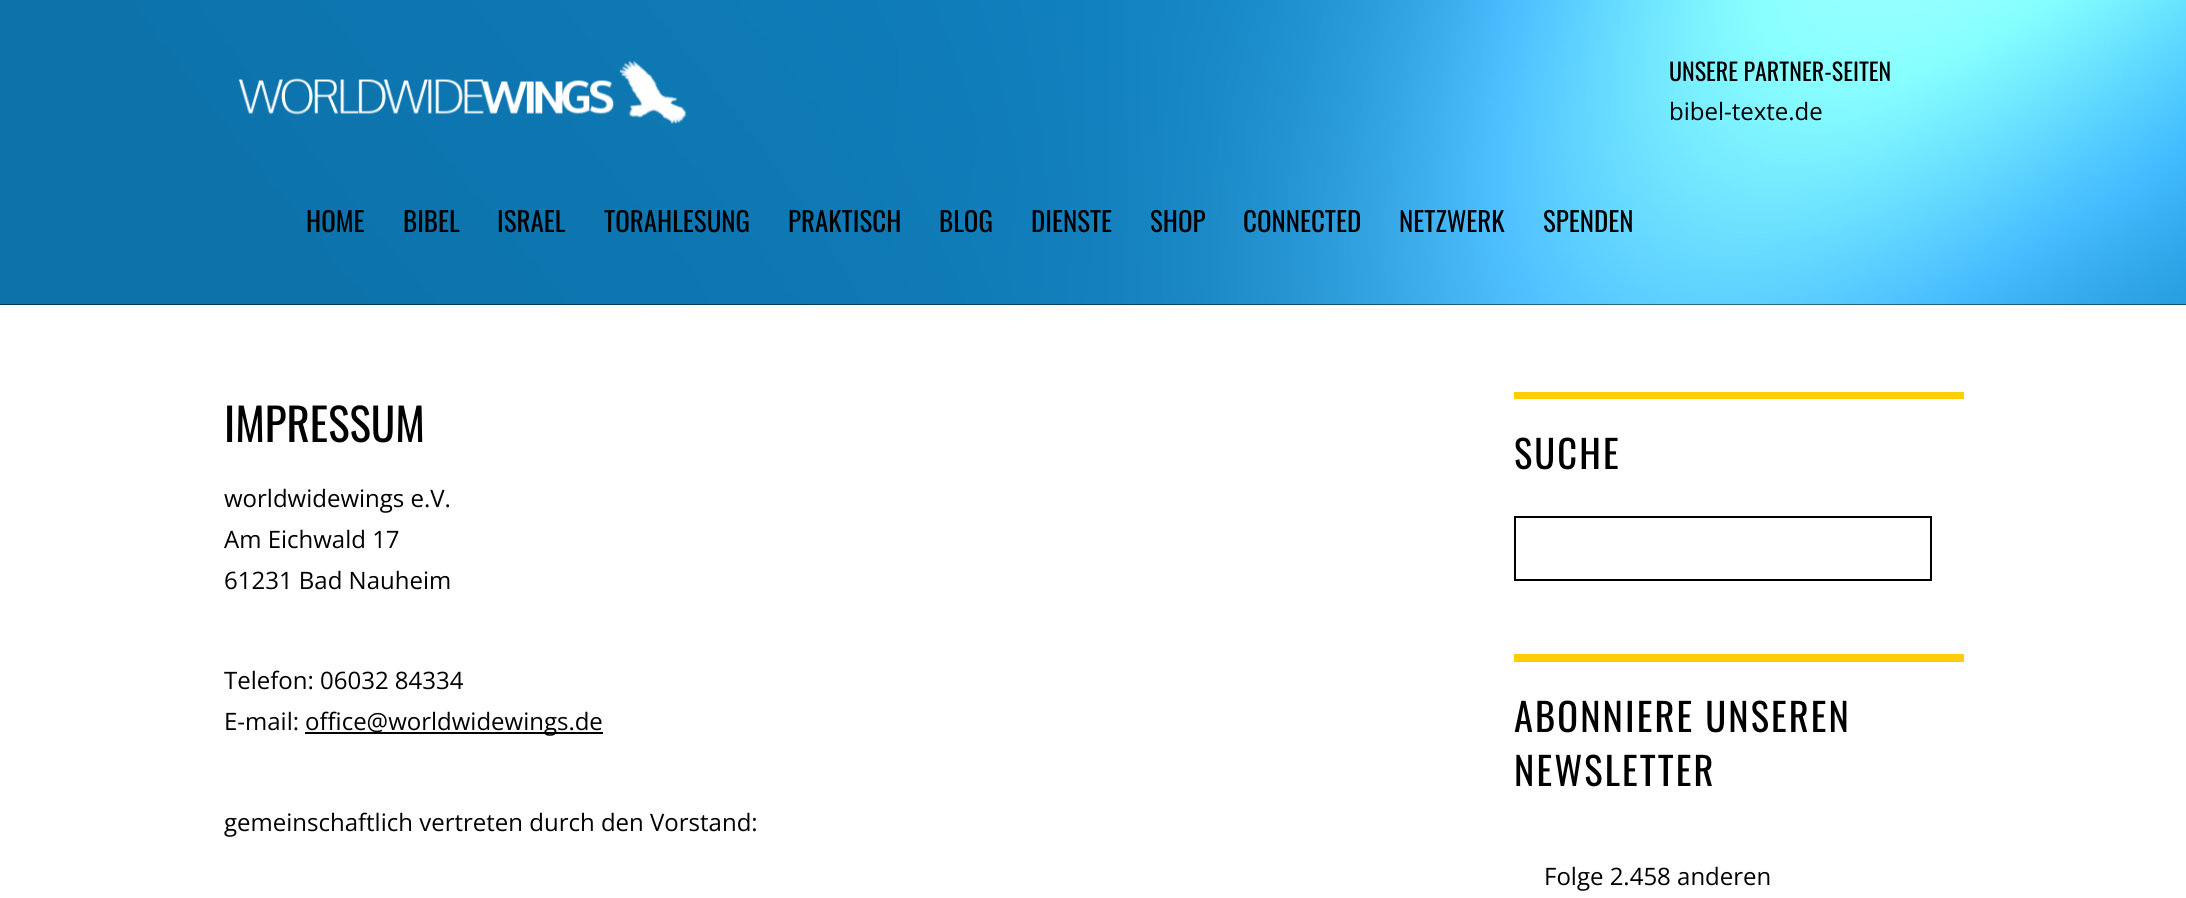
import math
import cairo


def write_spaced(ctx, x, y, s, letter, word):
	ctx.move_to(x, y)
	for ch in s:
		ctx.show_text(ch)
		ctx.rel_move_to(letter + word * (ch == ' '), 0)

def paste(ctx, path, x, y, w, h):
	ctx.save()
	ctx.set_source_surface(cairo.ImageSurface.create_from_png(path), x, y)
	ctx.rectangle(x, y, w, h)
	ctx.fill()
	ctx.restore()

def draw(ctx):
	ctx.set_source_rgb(1, 1, 1)
	ctx.paint()
	ctx.set_source_rgb(0, 0, 0)
	ctx.rectangle(0, 304, 2186, 1)
	ctx.fill()
	paste(ctx, 'media/1.png', 0, 0, 2186, 305)
	paste(ctx, 'media/2.png', 238, 60, 449, 64)
	ctx.select_font_face('Oswald')
	ctx.set_font_size(24)
	ctx.move_to(1669, 81)
	ctx.show_text('UNSERE PARTNER-SEITEN')
	ctx.select_font_face('Open Sans')
	ctx.move_to(1669, 120)
	ctx.show_text('bibel-texte.de')
	ctx.select_font_face('Oswald')
	ctx.set_font_size(27)
	for x, y, s in [
		(306, 232, 'HOME'),
		(403, 232, 'BIBEL'),
		(497, 232, 'ISRAEL'),
		(604, 232, 'TORAHLESUNG'),
		(788, 232, 'PRAKTISCH'),
		(939, 232, 'BLOG'),
		(1031, 232, 'DIENSTE'),
		(1150, 232, 'SHOP'),
		(1243, 232, 'CONNECTED'),
		(1399, 232, 'NETZWERK'),
		(1543, 232, 'SPENDEN'),
	]:
		ctx.move_to(x, y)
		ctx.show_text(s)
	ctx.set_font_size(45)
	ctx.move_to(224, 442)
	ctx.show_text('IMPRESSUM')
	ctx.select_font_face('Open Sans')
	ctx.set_font_size(24)
	for x, y, s in [
		(224, 507, 'worldwidewings e.V.'),
		(224, 548, 'Am Eichwald 17'),
		(224, 589, '61231 Bad Nauheim'),
		(224, 689, 'Telefon: 06032 84334'),
		(224, 730, 'E-mail:'),
	]:
		ctx.move_to(x, y)
		ctx.show_text(s)
	ctx.rectangle(305, 732, 298, 2)
	ctx.fill()
	ctx.move_to(305, 730)
	ctx.show_text('office@worldwidewings.de')
	ctx.move_to(224, 831)
	ctx.show_text('gemeinschaftlich vertreten durch den Vorstand:')
	ctx.set_source_rgb(0.996, 0.804, 0.024)
	ctx.rectangle(1514, 392, 450, 7)
	ctx.fill()
	ctx.select_font_face('Oswald')
	ctx.set_font_size(38.5)
	ctx.set_source_rgb(0, 0, 0)
	write_spaced(ctx, 1514, 469, 'SUCHE', 2.1, 0)
	ctx.rectangle(1515, 517, 416, 63)
	ctx.stroke()
	ctx.set_source_rgb(0.996, 0.804, 0.024)
	ctx.rectangle(1514, 654, 450, 8)
	ctx.fill()
	ctx.set_source_rgb(0, 0, 0)
	write_spaced(ctx, 1514, 732, 'ABONNIERE UNSEREN', 2.1, 0)
	write_spaced(ctx, 1514, 786, 'NEWSLETTER', 2.1, 0)
	ctx.select_font_face('Open Sans')
	ctx.set_font_size(24)
	ctx.move_to(1544, 885)
	ctx.show_text('Folge 2.458 anderen')


surface = cairo.ImageSurface(cairo.FORMAT_RGB24, 2186, 898)
ctx = cairo.Context(surface)
options = cairo.FontOptions()
options.set_hint_metrics(cairo.HINT_METRICS_OFF)
options.set_hint_style(cairo.HINT_STYLE_NONE)
ctx.set_font_options(options)
ctx.set_miter_limit(4)
draw(ctx)
surface.write_to_png('image.png')
